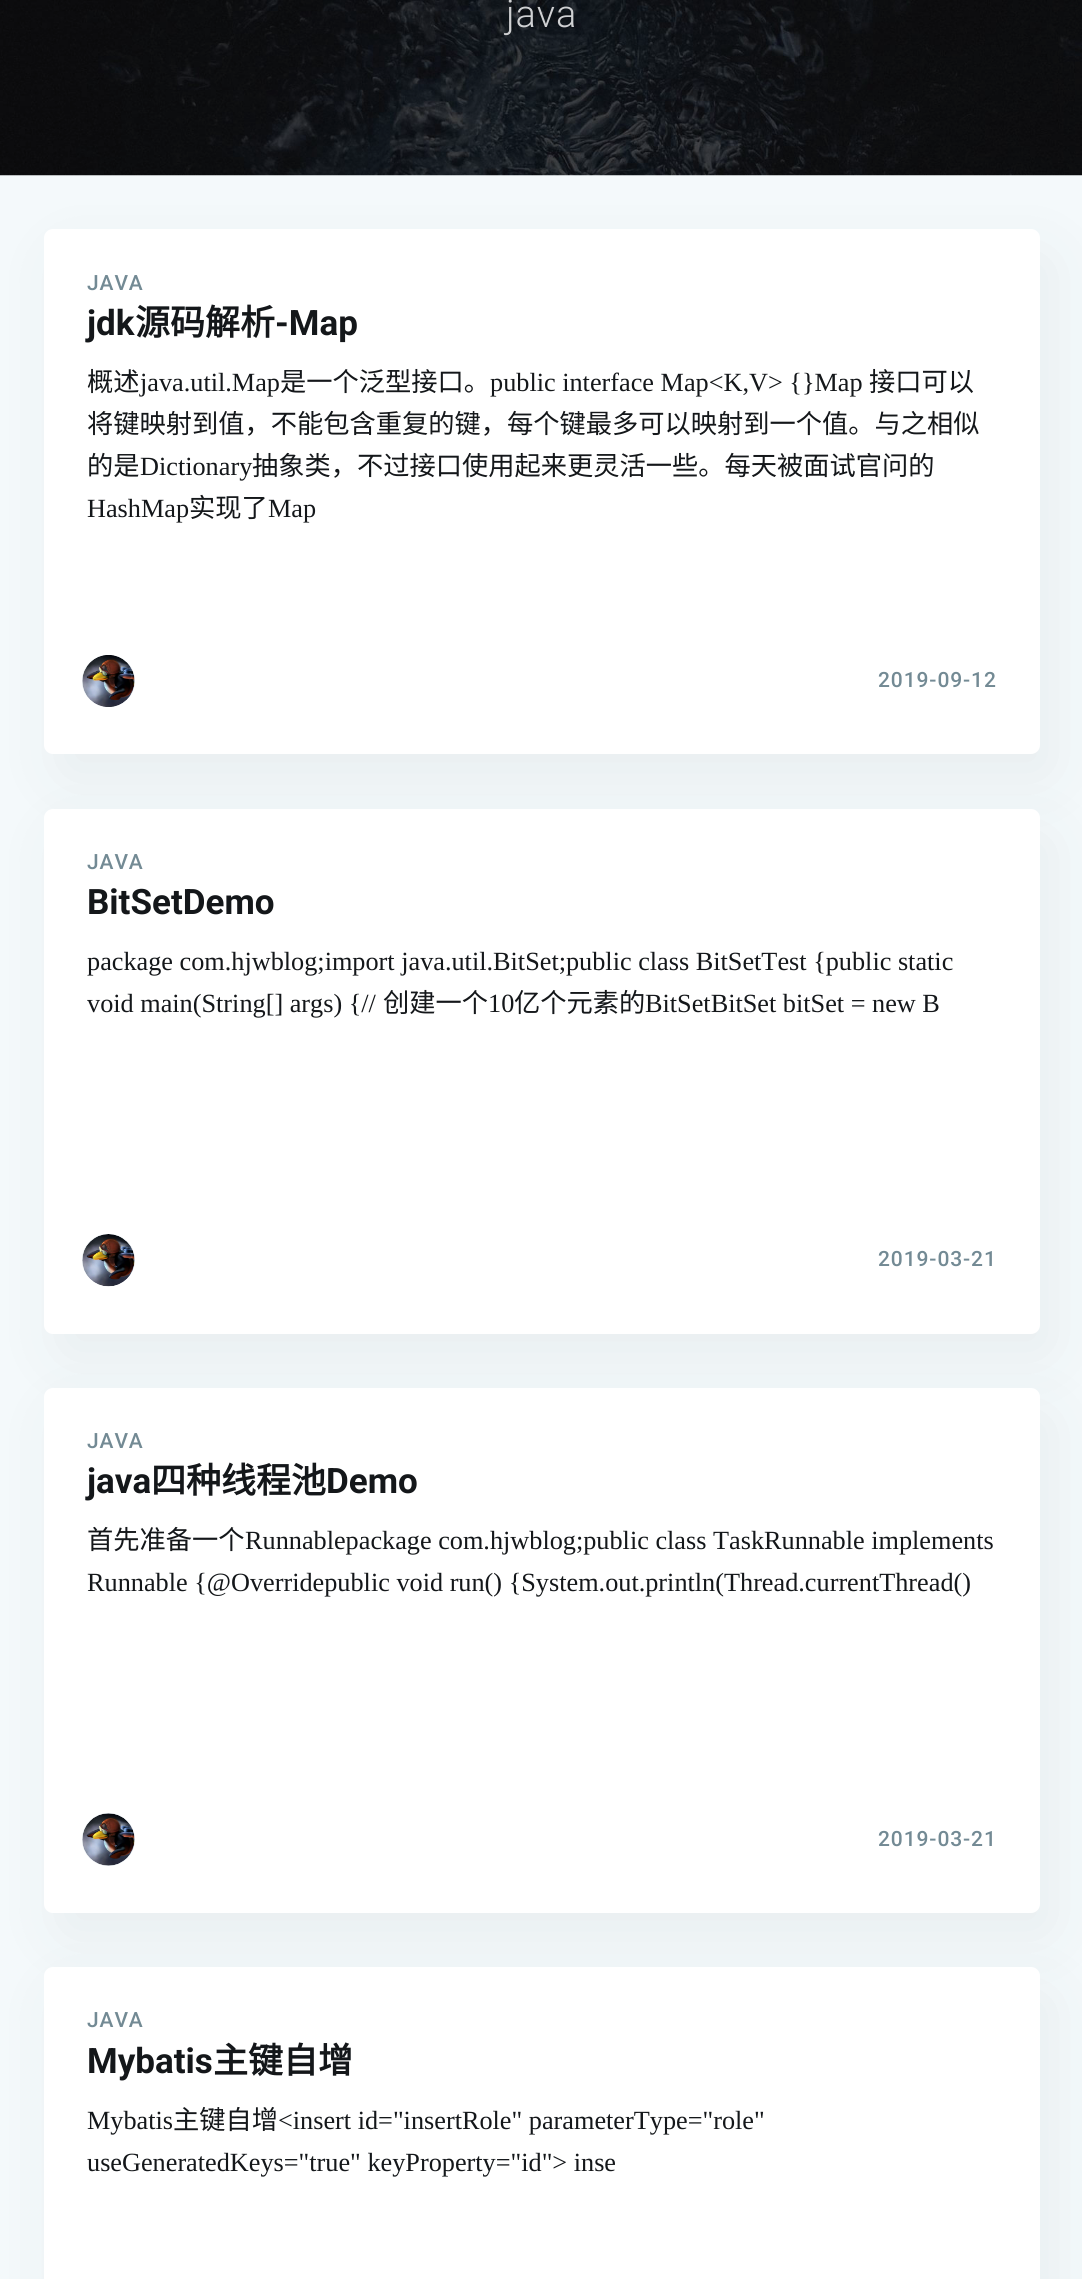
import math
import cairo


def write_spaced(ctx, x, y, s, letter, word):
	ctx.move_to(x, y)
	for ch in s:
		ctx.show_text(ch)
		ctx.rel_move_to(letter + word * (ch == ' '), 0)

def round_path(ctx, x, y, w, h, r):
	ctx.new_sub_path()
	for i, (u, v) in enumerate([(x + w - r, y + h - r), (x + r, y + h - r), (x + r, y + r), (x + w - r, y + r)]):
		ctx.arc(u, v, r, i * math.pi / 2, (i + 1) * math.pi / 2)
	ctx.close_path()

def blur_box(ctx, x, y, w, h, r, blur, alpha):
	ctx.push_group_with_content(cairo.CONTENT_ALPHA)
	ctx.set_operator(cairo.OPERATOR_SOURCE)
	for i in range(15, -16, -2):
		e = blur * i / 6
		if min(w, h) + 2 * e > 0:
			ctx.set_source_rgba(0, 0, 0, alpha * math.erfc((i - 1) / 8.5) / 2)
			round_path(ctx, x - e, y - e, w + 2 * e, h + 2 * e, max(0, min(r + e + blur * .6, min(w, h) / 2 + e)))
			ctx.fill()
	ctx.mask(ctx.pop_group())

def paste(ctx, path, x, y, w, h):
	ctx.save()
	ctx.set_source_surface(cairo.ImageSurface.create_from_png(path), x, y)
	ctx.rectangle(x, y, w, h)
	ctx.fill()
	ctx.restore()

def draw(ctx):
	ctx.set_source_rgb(0.957, 0.973, 0.984)
	ctx.paint()
	paste(ctx, 'media/1.png', 0, 0, 1082, 176)
	ctx.select_font_face('Roboto Light')
	ctx.set_font_size(38)
	ctx.set_source_rgb(0.812, 0.816, 0.824)
	write_spaced(ctx, 506, 27, 'java', 0.9, 0)
	ctx.set_source_rgb(0.153, 0.173, 0.192)
	blur_box(ctx, 58, 254, 996, 525, 9, 33, 0.06)
	ctx.set_source_rgb(1, 1, 1)
	round_path(ctx, 44, 229, 996, 525, 9)
	ctx.fill()
	ctx.select_font_face('Roboto Medium')
	ctx.set_font_size(21)
	ctx.set_source_rgb(0.451, 0.541, 0.58)
	write_spaced(ctx, 87, 290, 'JAVA', 0.9, 0)
	ctx.select_font_face('Roboto', cairo.FONT_SLANT_NORMAL, cairo.FONT_WEIGHT_BOLD)
	ctx.set_font_size(35)
	ctx.set_source_rgb(0.082, 0.09, 0.102)
	ctx.move_to(87, 335)
	ctx.show_text('jdk')
	ctx.select_font_face('Noto Sans CJK SC', cairo.FONT_SLANT_NORMAL, cairo.FONT_WEIGHT_BOLD)
	ctx.move_to(135, 335)
	ctx.show_text('源码解析')
	ctx.select_font_face('Roboto', cairo.FONT_SLANT_NORMAL, cairo.FONT_WEIGHT_BOLD)
	ctx.move_to(275, 335)
	ctx.show_text('-Map')
	ctx.select_font_face('Noto Sans CJK SC')
	ctx.set_font_size(26.25)
	ctx.move_to(87, 391)
	ctx.show_text('概述')
	ctx.select_font_face('Liberation Serif')
	ctx.move_to(140, 391)
	ctx.show_text('java.util.Map')
	ctx.select_font_face('Noto Sans CJK SC')
	ctx.move_to(280, 391)
	ctx.show_text('是一个泛型接口。')
	ctx.select_font_face('Liberation Serif')
	ctx.move_to(490, 391)
	ctx.show_text('public interface Map<K,V> {}Map')
	ctx.select_font_face('Noto Sans CJK SC')
	for x, y, s in [
		(869, 391, '接口可以'),
		(87, 433, '将键映射到值，不能包含重复的键，每个键最多可以映射到一个值。与之相似'),
		(87, 475, '的是'),
	]:
		ctx.move_to(x, y)
		ctx.show_text(s)
	ctx.select_font_face('Liberation Serif')
	ctx.move_to(140, 475)
	ctx.show_text('Dictionary')
	ctx.select_font_face('Noto Sans CJK SC')
	ctx.move_to(252, 475)
	ctx.show_text('抽象类，不过接口使用起来更灵活一些。每天被面试官问的')
	ctx.select_font_face('Liberation Serif')
	ctx.move_to(87, 517)
	ctx.show_text('HashMap')
	ctx.select_font_face('Noto Sans CJK SC')
	ctx.move_to(189, 517)
	ctx.show_text('实现了')
	ctx.select_font_face('Liberation Serif')
	ctx.move_to(268, 517)
	ctx.show_text('Map')
	ctx.set_source_rgb(0.89, 0.914, 0.929)
	round_path(ctx, 82, 655, 53, 52, 26)
	ctx.fill()
	paste(ctx, 'media/2.png', 82, 655, 53, 52)
	ctx.select_font_face('Roboto Medium')
	ctx.set_font_size(21)
	ctx.set_source_rgb(0.451, 0.541, 0.58)
	write_spaced(ctx, 878, 687, '2019-09-12', 0.9, 0)
	ctx.set_source_rgb(0.153, 0.173, 0.192)
	blur_box(ctx, 58, 833, 996, 525, 9, 33, 0.06)
	ctx.set_source_rgb(1, 1, 1)
	round_path(ctx, 44, 809, 996, 525, 9)
	ctx.fill()
	ctx.set_source_rgb(0.451, 0.541, 0.58)
	write_spaced(ctx, 87, 869, 'JAVA', 0.9, 0)
	ctx.select_font_face('Roboto', cairo.FONT_SLANT_NORMAL, cairo.FONT_WEIGHT_BOLD)
	ctx.set_font_size(35)
	ctx.set_source_rgb(0.082, 0.09, 0.102)
	ctx.move_to(87, 914)
	ctx.show_text('BitSetDemo')
	ctx.select_font_face('Liberation Serif')
	ctx.set_font_size(26.25)
	ctx.move_to(87, 970)
	ctx.show_text('package com.hjwblog;import java.util.BitSet;public class BitSetTest {public static')
	ctx.move_to(87, 1012)
	ctx.show_text('void main(String[] args) {//')
	ctx.select_font_face('Noto Sans CJK SC')
	ctx.move_to(383, 1012)
	ctx.show_text('创建一个')
	ctx.select_font_face('Liberation Serif')
	ctx.move_to(488, 1012)
	ctx.show_text('10')
	ctx.select_font_face('Noto Sans CJK SC')
	ctx.move_to(514, 1012)
	ctx.show_text('亿个元素的')
	ctx.select_font_face('Liberation Serif')
	ctx.move_to(645, 1012)
	ctx.show_text('BitSetBitSet bitSet = new B')
	ctx.set_source_rgb(0.89, 0.914, 0.929)
	round_path(ctx, 82, 1234, 53, 52, 26)
	ctx.fill()
	paste(ctx, 'media/3.png', 82, 1234, 53, 53)
	ctx.select_font_face('Roboto Medium')
	ctx.set_font_size(21)
	ctx.set_source_rgb(0.451, 0.541, 0.58)
	write_spaced(ctx, 878, 1266, '2019-03-21', 0.9, 0)
	ctx.set_source_rgb(0.153, 0.173, 0.192)
	blur_box(ctx, 58, 1412, 996, 525, 9, 33, 0.06)
	ctx.set_source_rgb(1, 1, 1)
	round_path(ctx, 44, 1388, 996, 525, 9)
	ctx.fill()
	ctx.set_source_rgb(0.451, 0.541, 0.58)
	write_spaced(ctx, 87, 1448, 'JAVA', 0.9, 0)
	ctx.select_font_face('Roboto', cairo.FONT_SLANT_NORMAL, cairo.FONT_WEIGHT_BOLD)
	ctx.set_font_size(35)
	ctx.set_source_rgb(0.082, 0.09, 0.102)
	ctx.move_to(87, 1493)
	ctx.show_text('java')
	ctx.select_font_face('Noto Sans CJK SC', cairo.FONT_SLANT_NORMAL, cairo.FONT_WEIGHT_BOLD)
	ctx.move_to(151, 1493)
	ctx.show_text('四种线程池')
	ctx.select_font_face('Roboto', cairo.FONT_SLANT_NORMAL, cairo.FONT_WEIGHT_BOLD)
	ctx.move_to(326, 1493)
	ctx.show_text('Demo')
	ctx.select_font_face('Noto Sans CJK SC')
	ctx.set_font_size(26.25)
	ctx.move_to(87, 1549)
	ctx.show_text('首先准备一个')
	ctx.select_font_face('Liberation Serif')
	ctx.move_to(245, 1549)
	ctx.show_text('Runnablepackage com.hjwblog;public class TaskRunnable implements')
	ctx.move_to(87, 1591)
	ctx.show_text('Runnable {@Overridepublic void run() {System.out.println(Thread.currentThread()')
	ctx.set_source_rgb(0.89, 0.914, 0.929)
	ctx.new_path()
	ctx.arc(108.5, 1839.5, 26.5, 0, 2 * math.pi)
	ctx.fill()
	paste(ctx, 'media/4.png', 82, 1813, 53, 53)
	ctx.select_font_face('Roboto Medium')
	ctx.set_font_size(21)
	ctx.set_source_rgb(0.451, 0.541, 0.58)
	write_spaced(ctx, 878, 1846, '2019-03-21', 0.9, 0)
	ctx.set_source_rgb(0.153, 0.173, 0.192)
	blur_box(ctx, 58, 1992, 996, 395, 9, 33, 0.06)
	ctx.set_source_rgb(1, 1, 1)
	round_path(ctx, 44, 1967, 996, 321, 9)
	ctx.fill()
	ctx.set_source_rgb(0.451, 0.541, 0.58)
	write_spaced(ctx, 87, 2027, 'JAVA', 0.9, 0)
	ctx.select_font_face('Roboto', cairo.FONT_SLANT_NORMAL, cairo.FONT_WEIGHT_BOLD)
	ctx.set_font_size(35)
	ctx.set_source_rgb(0.082, 0.09, 0.102)
	ctx.move_to(87, 2073)
	ctx.show_text('Mybatis')
	ctx.select_font_face('Noto Sans CJK SC', cairo.FONT_SLANT_NORMAL, cairo.FONT_WEIGHT_BOLD)
	ctx.move_to(213, 2073)
	ctx.show_text('主键自增')
	ctx.select_font_face('Liberation Serif')
	ctx.set_font_size(26.25)
	ctx.move_to(87, 2129)
	ctx.show_text('Mybatis')
	ctx.select_font_face('Noto Sans CJK SC')
	ctx.move_to(173, 2129)
	ctx.show_text('主键自增')
	ctx.select_font_face('Liberation Serif')
	ctx.move_to(278, 2129)
	ctx.show_text('<insert id="insertRole" parameterType="role"')
	ctx.move_to(87, 2171)
	ctx.show_text('useGeneratedKeys="true" keyProperty="id"> inse')


surface = cairo.ImageSurface(cairo.FORMAT_RGB24, 1082, 2279)
ctx = cairo.Context(surface)
options = cairo.FontOptions()
options.set_hint_metrics(cairo.HINT_METRICS_OFF)
options.set_hint_style(cairo.HINT_STYLE_NONE)
ctx.set_font_options(options)
ctx.set_miter_limit(4)
draw(ctx)
surface.write_to_png('image.png')
